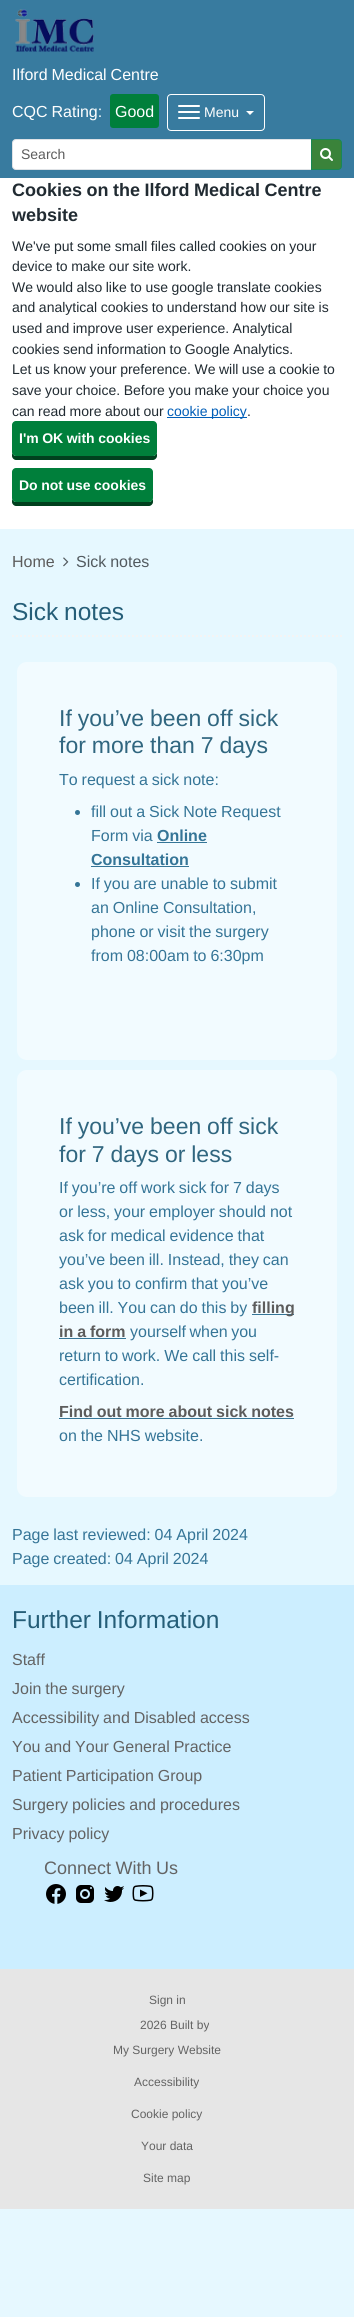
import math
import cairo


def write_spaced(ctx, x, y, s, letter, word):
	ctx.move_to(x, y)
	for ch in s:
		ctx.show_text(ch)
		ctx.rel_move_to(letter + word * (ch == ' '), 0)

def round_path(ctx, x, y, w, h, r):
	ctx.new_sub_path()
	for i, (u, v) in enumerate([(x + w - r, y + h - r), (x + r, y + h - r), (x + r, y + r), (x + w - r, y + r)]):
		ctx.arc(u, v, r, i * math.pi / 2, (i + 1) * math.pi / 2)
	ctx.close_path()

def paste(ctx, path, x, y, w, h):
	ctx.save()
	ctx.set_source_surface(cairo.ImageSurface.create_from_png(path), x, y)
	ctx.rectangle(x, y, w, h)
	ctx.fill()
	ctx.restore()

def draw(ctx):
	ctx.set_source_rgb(0.902, 0.969, 1)
	ctx.paint()
	ctx.set_source_rgb(0.22, 0.482, 0.624)
	ctx.rectangle(0, 0, 354, 178)
	ctx.fill()
	paste(ctx, 'media/1.png', 15, 9, 79, 43)
	ctx.select_font_face('Liberation Sans')
	ctx.set_font_size(16)
	ctx.set_source_rgb(1, 1, 1)
	write_spaced(ctx, 12, 80, 'Ilford Medical Centre', 0, -0.5)
	write_spaced(ctx, 12, 117, 'CQC Rating:', 0, -0.5)
	ctx.set_source_rgb(0, 0.498, 0.231)
	round_path(ctx, 110, 94, 49, 34, 3)
	ctx.fill()
	ctx.set_source_rgb(1, 1, 1)
	ctx.move_to(115, 117)
	ctx.show_text('Good')
	round_path(ctx, 167.5, 94.5, 97, 36, 3.5)
	ctx.set_line_width(1)
	ctx.stroke()
	round_path(ctx, 178, 105, 22, 2, 1)
	ctx.fill()
	round_path(ctx, 178, 111, 22, 2, 1)
	ctx.fill()
	round_path(ctx, 178, 117, 22, 2, 1)
	ctx.fill()
	ctx.set_font_size(14)
	ctx.move_to(204, 117)
	ctx.show_text('Menu')
	ctx.new_path()
	ctx.move_to(246, 111)
	ctx.line_to(254, 111)
	ctx.line_to(250, 115)
	ctx.close_path()
	ctx.fill()
	ctx.new_path()
	ctx.move_to(16, 139.5)
	ctx.line_to(311.5, 139.5)
	ctx.line_to(311.5, 169.5)
	ctx.line_to(16, 169.5)
	ctx.curve_to(14, 169.5, 12.5, 168, 12.5, 166)
	ctx.line_to(12.5, 143)
	ctx.curve_to(12.5, 141, 14, 139.5, 16, 139.5)
	ctx.close_path()
	ctx.fill_preserve()
	ctx.set_source_rgb(0.871, 0.886, 0.902)
	ctx.stroke()
	ctx.set_source_rgb(0.361, 0.361, 0.361)
	ctx.move_to(21, 159)
	ctx.show_text('Search')
	ctx.set_source_rgb(0.227, 0.514, 0.227)
	ctx.new_path()
	ctx.move_to(311.5, 139.5)
	ctx.line_to(338, 139.5)
	ctx.curve_to(340, 139.5, 341.5, 141, 341.5, 143)
	ctx.line_to(341.5, 166)
	ctx.curve_to(341.5, 168, 340, 169.5, 338, 169.5)
	ctx.line_to(311.5, 169.5)
	ctx.close_path()
	ctx.fill_preserve()
	ctx.set_source_rgb(0.098, 0.529, 0.329)
	ctx.stroke()
	paste(ctx, 'media/2.png', 320, 148, 13, 13)
	ctx.set_font_size(16)
	ctx.set_source_rgb(0.361, 0.361, 0.361)
	ctx.move_to(12, 567)
	ctx.show_text('Home')
	paste(ctx, 'media/3.png', 63, 557, 6, 10)
	ctx.set_source_rgb(0.322, 0.353, 0.373)
	write_spaced(ctx, 76, 567, 'Sick notes', 0, -0.5)
	ctx.new_path()
	ctx.move_to(12, 636)
	ctx.line_to(342, 636)
	ctx.set_source_rgb(0.957, 0.957, 0.957)
	ctx.set_line_width(2)
	ctx.set_dash([2, 2])
	ctx.stroke()
	ctx.set_font_size(24.5)
	ctx.set_source_rgb(0.145, 0.369, 0.471)
	write_spaced(ctx, 12, 620, 'Sick notes', 0, -1)
	ctx.set_source_rgb(0.949, 0.984, 1)
	round_path(ctx, 17, 662, 320, 398, 10)
	ctx.fill()
	ctx.set_font_size(23)
	ctx.set_source_rgb(0.188, 0.4, 0.498)
	write_spaced(ctx, 59, 726, 'If you’ve been off sick', 0, -0.5)
	write_spaced(ctx, 59, 753, 'for more than 7 days', 0, -0.5)
	ctx.set_font_size(16)
	ctx.set_source_rgb(0.208, 0.459, 0.592)
	write_spaced(ctx, 59, 785, 'To request a sick note:', 0, -0.5)
	ctx.new_path()
	ctx.arc(77.5, 812.5, 2.5, 0, 2 * math.pi)
	ctx.fill()
	write_spaced(ctx, 91, 817, 'fill out a Sick Note Request', 0, -0.5)
	write_spaced(ctx, 91, 841, 'Form via', 0, -0.5)
	ctx.select_font_face('Liberation Sans', cairo.FONT_SLANT_NORMAL, cairo.FONT_WEIGHT_BOLD)
	ctx.move_to(157, 841)
	ctx.show_text('Online')
	ctx.rectangle(157, 842, 50, 1)
	ctx.fill()
	ctx.move_to(91, 865)
	ctx.show_text('Consultation')
	ctx.rectangle(91, 866, 98, 1)
	ctx.fill()
	ctx.arc(77.5, 884.5, 2.5, 0, 2 * math.pi)
	ctx.fill()
	ctx.select_font_face('Liberation Sans')
	for x, y, s in [
		(91, 889, 'If you are unable to submit'),
		(91, 913, 'an Online Consultation,'),
		(91, 937, 'phone or visit the surgery'),
		(91, 961, 'from 08:00am to 6:30pm'),
	]:
		write_spaced(ctx, x, y, s, 0, -0.5)
	ctx.set_source_rgb(0.949, 0.984, 1)
	round_path(ctx, 17, 1070, 320, 427, 10)
	ctx.fill()
	ctx.set_font_size(23)
	ctx.set_source_rgb(0.188, 0.4, 0.498)
	write_spaced(ctx, 59, 1134, 'If you’ve been off sick', 0, -0.5)
	write_spaced(ctx, 59, 1162, 'for 7 days or less', 0, -0.5)
	ctx.set_font_size(16)
	ctx.set_source_rgb(0.208, 0.459, 0.592)
	for x, y, s in [
		(59, 1193, 'If you’re off work sick for 7 days'),
		(59, 1217, 'or less, your employer should not'),
		(59, 1241, 'ask for medical evidence that'),
		(59, 1265, 'you’ve been ill. Instead, they can'),
		(59, 1289, 'ask you to confirm that you’ve'),
		(59, 1313, 'been ill. You can do this by'),
	]:
		write_spaced(ctx, x, y, s, 0, -0.5)
	ctx.rectangle(252, 1314, 42, 1)
	ctx.fill()
	ctx.select_font_face('Liberation Sans', cairo.FONT_SLANT_NORMAL, cairo.FONT_WEIGHT_BOLD)
	ctx.set_source_rgb(0.361, 0.361, 0.361)
	ctx.move_to(252, 1313)
	ctx.show_text('filling')
	write_spaced(ctx, 59, 1337, 'in a form', 0, -0.5)
	ctx.set_source_rgb(0.208, 0.459, 0.592)
	ctx.rectangle(59, 1338, 67, 1)
	ctx.fill()
	ctx.select_font_face('Liberation Sans')
	write_spaced(ctx, 130, 1337, 'yourself when you', 0, -1)
	write_spaced(ctx, 59, 1361, 'return to work. We call this self-', 0, -0.5)
	ctx.move_to(59, 1385)
	ctx.show_text('certification.')
	ctx.select_font_face('Liberation Sans', cairo.FONT_SLANT_NORMAL, cairo.FONT_WEIGHT_BOLD)
	ctx.set_source_rgb(0.361, 0.361, 0.361)
	write_spaced(ctx, 59, 1417, 'Find out more about sick notes', 0, -0.5)
	ctx.set_source_rgb(0.208, 0.459, 0.592)
	ctx.rectangle(59, 1418, 235, 1)
	ctx.fill()
	ctx.select_font_face('Liberation Sans')
	for x, y, s in [
		(59, 1441, 'on the NHS website.'),
		(12, 1540, 'Page last reviewed: 04 April 2024'),
		(12, 1564, 'Page created: 04 April 2024'),
	]:
		write_spaced(ctx, x, y, s, 0, -0.5)
	ctx.set_source_rgb(0.8, 0.933, 1)
	ctx.rectangle(0, 1585, 354, 384)
	ctx.fill()
	ctx.set_font_size(24.5)
	ctx.set_source_rgb(0.145, 0.369, 0.471)
	write_spaced(ctx, 12, 1628, 'Further Information', 0, -1)
	ctx.set_font_size(16)
	ctx.set_source_rgb(0.388, 0.388, 0.388)
	ctx.move_to(12, 1665)
	ctx.show_text('Staff')
	for x, y, s in [
		(12, 1694, 'Join the surgery'),
		(12, 1723, 'Accessibility and Disabled access'),
		(12, 1752, 'You and Your General Practice'),
		(12, 1781, 'Patient Participation Group'),
		(12, 1810, 'Surgery policies and procedures'),
		(12, 1839, 'Privacy policy'),
	]:
		write_spaced(ctx, x, y, s, 0, -0.5)
	ctx.set_font_size(18)
	write_spaced(ctx, 44, 1874, 'Connect With Us', 0, -0.5)
	paste(ctx, 'media/4.png', 46, 1884, 20, 20)
	paste(ctx, 'media/5.png', 76, 1885, 18, 18)
	paste(ctx, 'media/6.png', 104, 1886, 20, 16)
	paste(ctx, 'media/7.png', 132, 1885, 22, 17)
	ctx.set_source_rgb(1, 1, 1)
	ctx.rectangle(0, 178, 354, 351)
	ctx.fill()
	ctx.select_font_face('Liberation Sans', cairo.FONT_SLANT_NORMAL, cairo.FONT_WEIGHT_BOLD)
	ctx.set_source_rgb(0.129, 0.169, 0.196)
	write_spaced(ctx, 12, 196, 'Cookies on the Ilford Medical Centre', 0, -0.5)
	ctx.move_to(12, 221)
	ctx.show_text('website')
	ctx.select_font_face('Liberation Sans')
	ctx.set_font_size(14)
	for x, y, s in [
		(12, 251, 'We\'ve put some small files called cookies on your'),
		(12, 271, 'device to make our site work.'),
		(12, 292, 'We would also like to use google translate cookies'),
		(12, 312, 'and analytical cookies to understand how our site is'),
		(12, 333, 'used and improve user experience. Analytical'),
		(12, 354, 'cookies send information to Google Analytics.'),
		(12, 374, 'Let us know your preference. We will use a cookie to'),
		(12, 395, 'save your choice. Before you make your choice you'),
		(12, 416, 'can read more about our'),
	]:
		write_spaced(ctx, x, y, s, 0, -0.4)
	ctx.set_source_rgb(0, 0.369, 0.722)
	ctx.rectangle(167, 417, 80, 1)
	ctx.fill()
	write_spaced(ctx, 167, 416, 'cookie policy', 0, -0.4)
	ctx.set_source_rgb(0.129, 0.169, 0.196)
	ctx.move_to(247, 416)
	ctx.show_text('.')
	ctx.set_source_rgb(0, 0.251, 0.118)
	ctx.new_path()
	ctx.move_to(12, 452)
	ctx.line_to(12, 456)
	ctx.curve_to(12, 458, 14, 460, 16, 460)
	ctx.line_to(153, 460)
	ctx.curve_to(155, 460, 157, 458, 157, 456)
	ctx.line_to(157, 452)
	ctx.curve_to(157, 454, 155, 456, 153, 456)
	ctx.line_to(16, 456)
	ctx.curve_to(14, 456, 12, 454, 12, 452)
	ctx.close_path()
	ctx.fill()
	ctx.set_source_rgb(0, 0.498, 0.231)
	round_path(ctx, 12, 421, 145, 35, 4)
	ctx.fill()
	ctx.select_font_face('Liberation Sans', cairo.FONT_SLANT_NORMAL, cairo.FONT_WEIGHT_BOLD)
	ctx.set_source_rgb(1, 1, 1)
	write_spaced(ctx, 19, 443, 'I\'m OK with cookies', 0, -0.4)
	ctx.set_source_rgb(0, 0.251, 0.118)
	ctx.new_path()
	ctx.move_to(12, 498)
	ctx.line_to(12, 502)
	ctx.curve_to(12, 504, 14, 506, 16, 506)
	ctx.line_to(149, 506)
	ctx.curve_to(151, 506, 153, 504, 153, 502)
	ctx.line_to(153, 498)
	ctx.curve_to(153, 500, 151, 502, 149, 502)
	ctx.line_to(16, 502)
	ctx.curve_to(14, 502, 12, 500, 12, 498)
	ctx.close_path()
	ctx.fill()
	ctx.set_source_rgb(0, 0.498, 0.231)
	round_path(ctx, 12, 468, 141, 34, 4)
	ctx.fill()
	ctx.set_source_rgb(1, 1, 1)
	write_spaced(ctx, 19, 490, 'Do not use cookies', 0, -0.4)
	ctx.set_source_rgb(0.902, 0.902, 0.902)
	ctx.rectangle(0, 1969, 354, 240)
	ctx.fill()
	ctx.select_font_face('Liberation Sans')
	ctx.set_font_size(12)
	ctx.set_source_rgb(0.388, 0.388, 0.388)
	for x, y, s in [
		(149, 2004, 'Sign in'),
		(140, 2029, '2026 Built by'),
		(113, 2054, 'My Surgery Website'),
		(134, 2086, 'Accessibility'),
		(131, 2118, 'Cookie policy'),
		(141, 2150, 'Your data'),
		(143, 2182, 'Site map'),
	]:
		ctx.move_to(x, y)
		ctx.show_text(s)


surface = cairo.ImageSurface(cairo.FORMAT_RGB24, 354, 2317)
ctx = cairo.Context(surface)
options = cairo.FontOptions()
options.set_hint_metrics(cairo.HINT_METRICS_OFF)
options.set_hint_style(cairo.HINT_STYLE_NONE)
ctx.set_font_options(options)
ctx.set_miter_limit(4)
draw(ctx)
surface.write_to_png('image.png')
